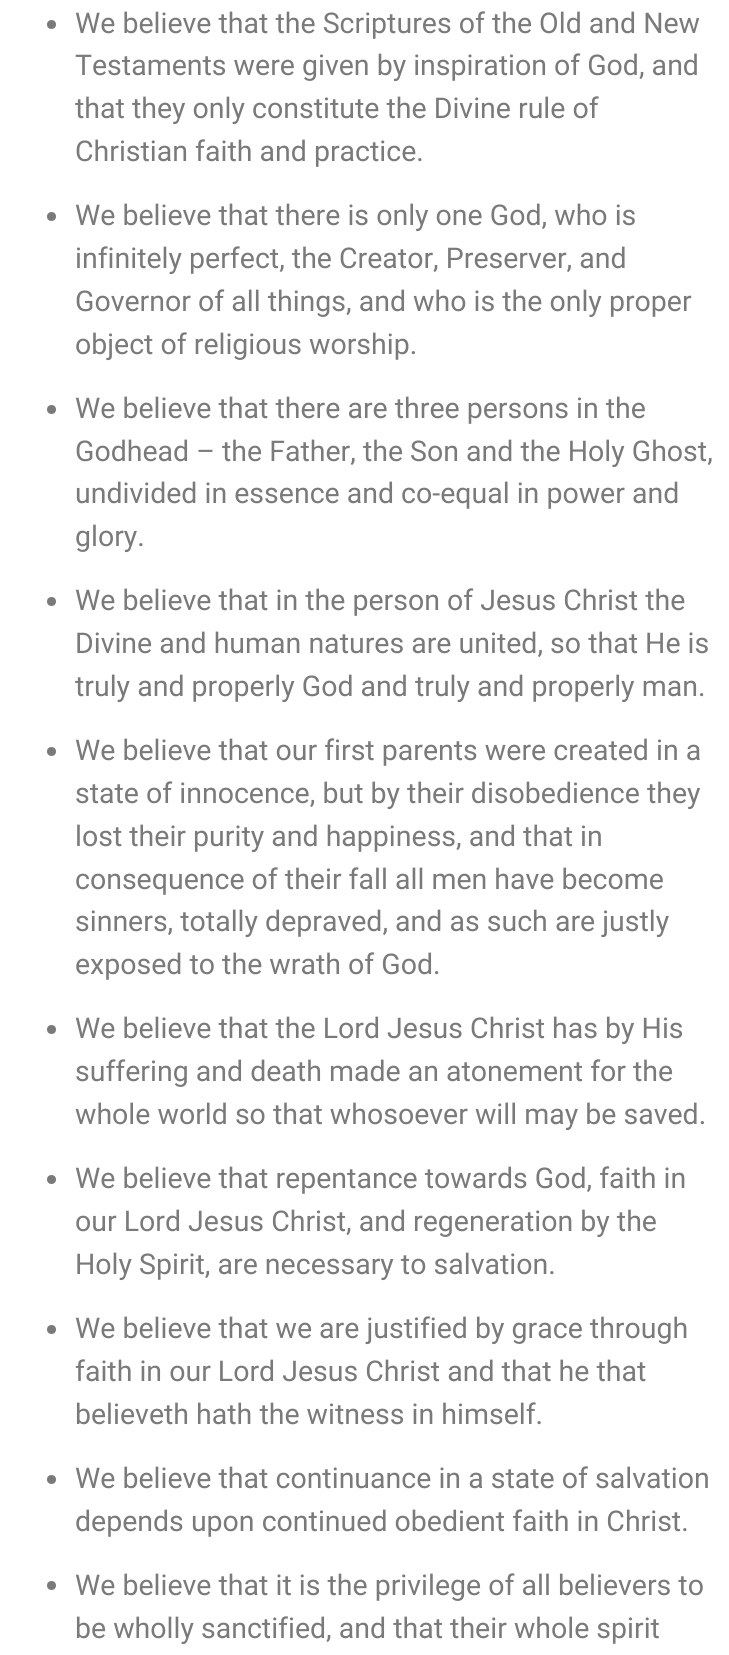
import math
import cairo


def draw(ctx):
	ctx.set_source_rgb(1, 1, 1)
	ctx.paint()
	ctx.set_source_rgb(0.478, 0.478, 0.478)
	ctx.arc(51.5, 24.5, 4.5, 0, 2 * math.pi)
	ctx.fill()
	ctx.select_font_face('Roboto')
	ctx.set_font_size(28.5)
	for x, y, s in [
		(75, 33, 'We believe that the Scriptures of the Old and New'),
		(75, 75, 'Testaments were given by inspiration of God, and'),
		(75, 118, 'that they only constitute the Divine rule of'),
		(75, 161, 'Christian faith and practice.'),
	]:
		ctx.move_to(x, y)
		ctx.show_text(s)
	ctx.new_path()
	ctx.arc(51.5, 216.5, 4.5, 0, 2 * math.pi)
	ctx.fill()
	for x, y, s in [
		(75, 225, 'We believe that there is only one God, who is'),
		(75, 268, 'infinitely perfect, the Creator, Preserver, and'),
		(75, 311, 'Governor of all things, and who is the only proper'),
		(75, 354, 'object of religious worship.'),
	]:
		ctx.move_to(x, y)
		ctx.show_text(s)
	ctx.new_path()
	ctx.arc(51.5, 409.5, 4.5, 0, 2 * math.pi)
	ctx.fill()
	for x, y, s in [
		(75, 418, 'We believe that there are three persons in the'),
		(75, 461, 'Godhead – the Father, the Son and the Holy Ghost,'),
		(75, 503, 'undivided in essence and co-equal in power and'),
		(75, 546, 'glory.'),
	]:
		ctx.move_to(x, y)
		ctx.show_text(s)
	ctx.new_path()
	ctx.arc(51.5, 601.5, 4.5, 0, 2 * math.pi)
	ctx.fill()
	for x, y, s in [
		(75, 610, 'We believe that in the person of Jesus Christ the'),
		(75, 653, 'Divine and human natures are united, so that He is'),
		(75, 696, 'truly and properly God and truly and properly man.'),
	]:
		ctx.move_to(x, y)
		ctx.show_text(s)
	ctx.new_path()
	ctx.arc(51.5, 751.5, 4.5, 0, 2 * math.pi)
	ctx.fill()
	for x, y, s in [
		(75, 760, 'We believe that our first parents were created in a'),
		(75, 803, 'state of innocence, but by their disobedience they'),
		(75, 846, 'lost their purity and happiness, and that in'),
		(75, 889, 'consequence of their fall all men have become'),
		(75, 931, 'sinners, totally depraved, and as such are justly'),
		(75, 974, 'exposed to the wrath of God.'),
	]:
		ctx.move_to(x, y)
		ctx.show_text(s)
	ctx.new_path()
	ctx.arc(51.5, 1029.5, 4.5, 0, 2 * math.pi)
	ctx.fill()
	for x, y, s in [
		(75, 1038, 'We believe that the Lord Jesus Christ has by His'),
		(75, 1081, 'suffering and death made an atonement for the'),
		(75, 1124, 'whole world so that whosoever will may be saved.'),
	]:
		ctx.move_to(x, y)
		ctx.show_text(s)
	ctx.new_path()
	ctx.arc(51.5, 1179.5, 4.5, 0, 2 * math.pi)
	ctx.fill()
	for x, y, s in [
		(75, 1188, 'We believe that repentance towards God, faith in'),
		(75, 1231, 'our Lord Jesus Christ, and regeneration by the'),
		(75, 1274, 'Holy Spirit, are necessary to salvation.'),
	]:
		ctx.move_to(x, y)
		ctx.show_text(s)
	ctx.new_path()
	ctx.arc(51.5, 1329.5, 4.5, 0, 2 * math.pi)
	ctx.fill()
	for x, y, s in [
		(75, 1338, 'We believe that we are justified by grace through'),
		(75, 1381, 'faith in our Lord Jesus Christ and that he that'),
		(75, 1424, 'believeth hath the witness in himself.'),
	]:
		ctx.move_to(x, y)
		ctx.show_text(s)
	ctx.new_path()
	ctx.arc(51.5, 1479.5, 4.5, 0, 2 * math.pi)
	ctx.fill()
	ctx.move_to(75, 1488)
	ctx.show_text('We believe that continuance in a state of salvation')
	ctx.move_to(75, 1531)
	ctx.show_text('depends upon continued obedient faith in Christ.')
	ctx.new_path()
	ctx.arc(51.5, 1585.5, 4.5, 0, 2 * math.pi)
	ctx.fill()
	ctx.move_to(75, 1595)
	ctx.show_text('We believe that it is the privilege of all believers to')
	ctx.move_to(75, 1638)
	ctx.show_text('be wholly sanctified, and that their whole spirit')


surface = cairo.ImageSurface(cairo.FORMAT_RGB24, 729, 1655)
ctx = cairo.Context(surface)
options = cairo.FontOptions()
options.set_hint_metrics(cairo.HINT_METRICS_OFF)
options.set_hint_style(cairo.HINT_STYLE_NONE)
ctx.set_font_options(options)
ctx.set_miter_limit(4)
draw(ctx)
surface.write_to_png('image.png')
